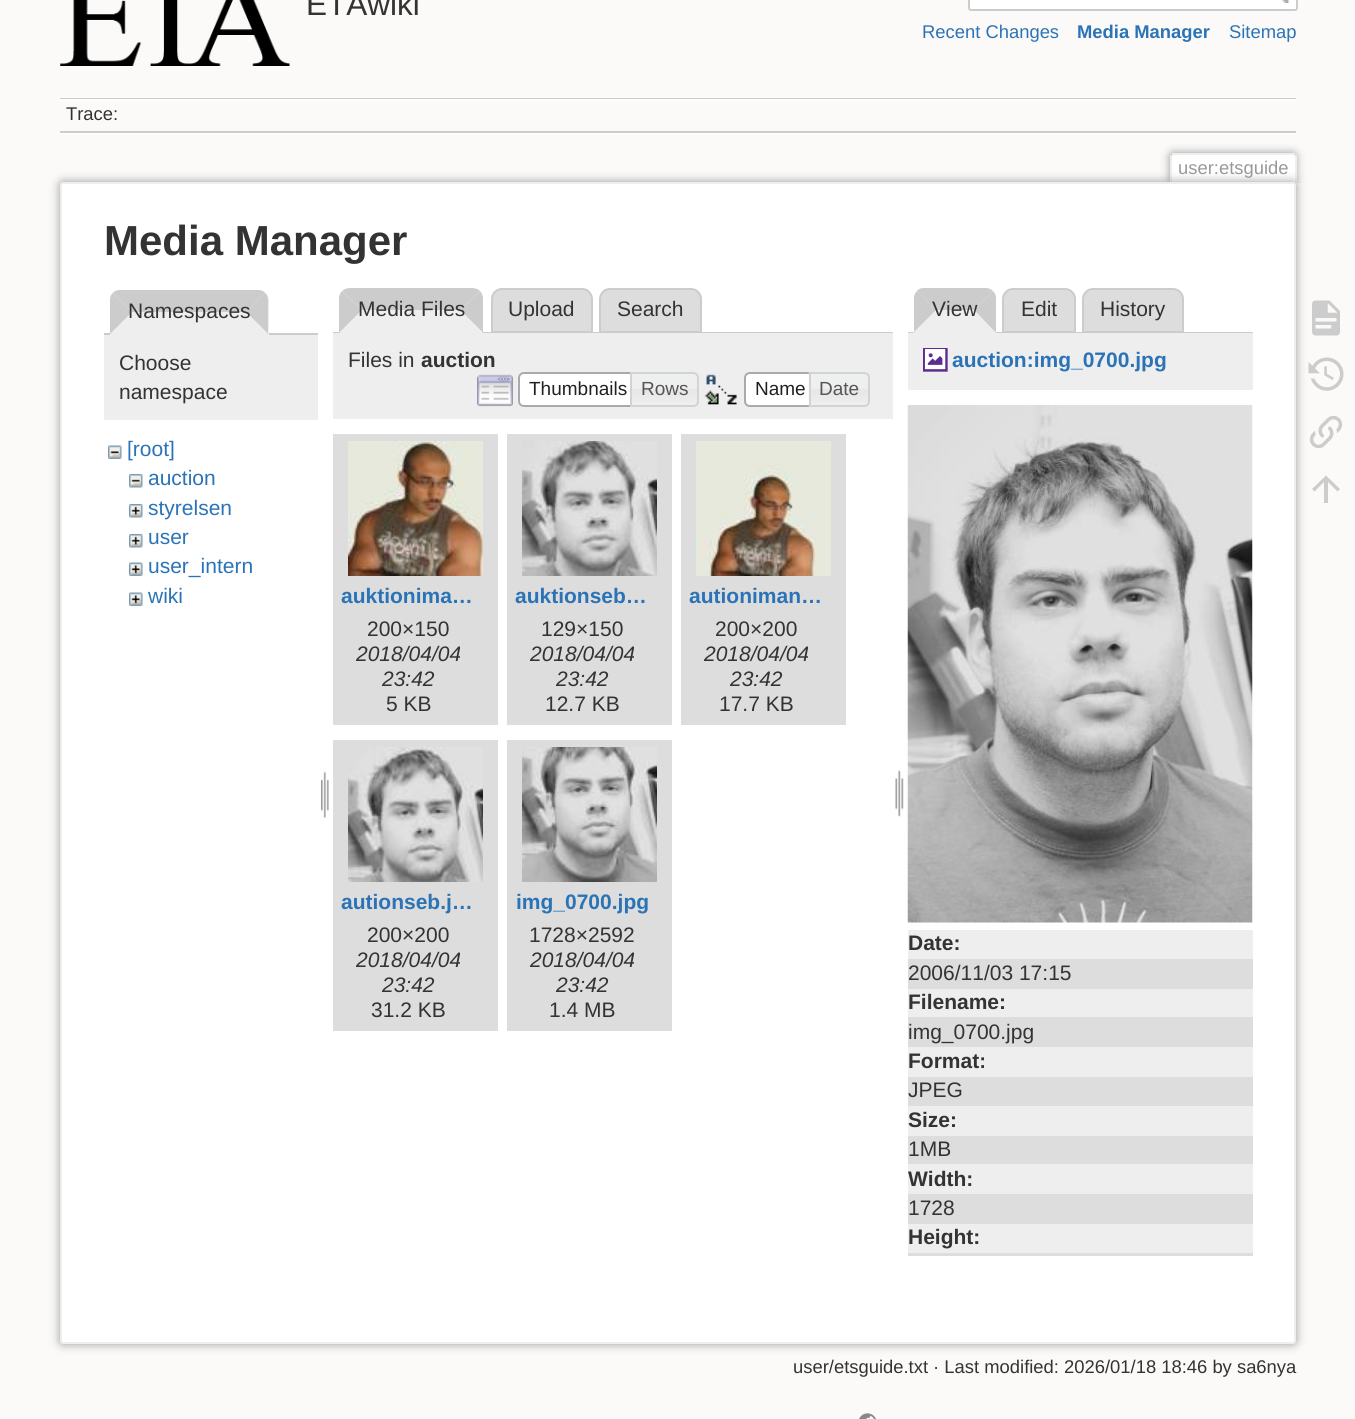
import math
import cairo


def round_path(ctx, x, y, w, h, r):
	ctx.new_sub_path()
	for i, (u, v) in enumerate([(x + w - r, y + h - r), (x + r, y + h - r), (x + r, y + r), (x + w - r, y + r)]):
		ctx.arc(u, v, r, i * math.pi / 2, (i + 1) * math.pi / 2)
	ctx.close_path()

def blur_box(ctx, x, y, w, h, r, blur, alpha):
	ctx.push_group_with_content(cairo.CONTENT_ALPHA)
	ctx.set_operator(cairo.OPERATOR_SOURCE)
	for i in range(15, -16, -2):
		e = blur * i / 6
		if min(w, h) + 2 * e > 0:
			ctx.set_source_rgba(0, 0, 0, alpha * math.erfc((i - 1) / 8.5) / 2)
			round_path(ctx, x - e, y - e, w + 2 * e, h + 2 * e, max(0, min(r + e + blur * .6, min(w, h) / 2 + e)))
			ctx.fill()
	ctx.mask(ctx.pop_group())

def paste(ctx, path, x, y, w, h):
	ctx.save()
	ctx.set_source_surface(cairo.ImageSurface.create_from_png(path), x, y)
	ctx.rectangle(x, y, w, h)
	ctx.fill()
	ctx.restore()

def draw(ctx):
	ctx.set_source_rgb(0.984, 0.98, 0.976)
	ctx.paint()
	paste(ctx, 'media/1.png', 60, 0, 230, 66)
	ctx.select_font_face('Liberation Sans')
	ctx.set_font_size(31.5)
	ctx.set_source_rgb(0.2, 0.2, 0.2)
	ctx.move_to(306, 15)
	ctx.show_text('ETAwiki')
	ctx.set_source_rgb(1, 1, 1)
	round_path(ctx, 969, -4, 328, 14, 2)
	ctx.fill_preserve()
	ctx.set_source_rgb(0.8, 0.8, 0.8)
	ctx.stroke()
	paste(ctx, 'media/2.png', 1281, 0, 8, 3)
	ctx.set_font_size(18.4)
	ctx.set_source_rgb(0.169, 0.451, 0.718)
	ctx.move_to(922, 38)
	ctx.show_text('Recent Changes')
	ctx.select_font_face('Liberation Sans', cairo.FONT_SLANT_NORMAL, cairo.FONT_WEIGHT_BOLD)
	ctx.move_to(1077, 38)
	ctx.show_text('Media Manager')
	ctx.select_font_face('Liberation Sans')
	ctx.move_to(1229, 38)
	ctx.show_text('Sitemap')
	ctx.set_source_rgb(0.8, 0.8, 0.8)
	ctx.rectangle(60, 98, 1236, 1)
	ctx.fill()
	ctx.set_source_rgb(1, 1, 1)
	ctx.rectangle(60, 133, 1236, 1)
	ctx.rectangle(60, 99, 1236, 2)
	ctx.fill()
	ctx.set_source_rgb(0.8, 0.8, 0.8)
	ctx.rectangle(60, 131, 1236, 2)
	ctx.fill()
	ctx.set_source_rgb(0.2, 0.2, 0.2)
	ctx.move_to(66, 120)
	ctx.show_text('Trace:')
	ctx.save()
	ctx.rectangle(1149, 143, 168, 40)
	ctx.clip()
	ctx.set_source_rgb(0.6, 0.6, 0.6)
	blur_box(ctx, 1170, 153, 126, 30, 3, 4.5, 1)
	ctx.restore()
	ctx.set_source_rgb(1, 1, 1)
	ctx.new_path()
	ctx.move_to(1173.5, 155)
	ctx.line_to(1293.5, 155)
	ctx.curve_to(1294.5, 155, 1295, 155.5, 1295, 156.5)
	ctx.line_to(1295, 183)
	ctx.line_to(1172, 183)
	ctx.line_to(1172, 156.5)
	ctx.curve_to(1172, 155.5, 1172.5, 155, 1173.5, 155)
	ctx.close_path()
	ctx.fill()
	ctx.set_source_rgb(0.933, 0.933, 0.933)
	ctx.rectangle(1172, 153, 123, 2)
	ctx.rectangle(1295, 155, 2, 28)
	ctx.rectangle(1170, 155, 2, 28)
	ctx.fill()
	ctx.set_source_rgb(0.6, 0.6, 0.6)
	ctx.move_to(1178, 174)
	ctx.show_text('user:etsguide')
	ctx.set_source_rgb(0.6, 0.6, 0.6)
	blur_box(ctx, 60, 182, 1236, 1162, 3, 5, 1)
	ctx.set_source_rgb(1, 1, 1)
	round_path(ctx, 61, 183, 1234, 1160, 2)
	ctx.fill_preserve()
	ctx.set_source_rgb(0.933, 0.933, 0.933)
	ctx.stroke()
	ctx.select_font_face('Liberation Sans', cairo.FONT_SLANT_NORMAL, cairo.FONT_WEIGHT_BOLD)
	ctx.set_font_size(42)
	ctx.set_source_rgb(0.2, 0.2, 0.2)
	ctx.move_to(104, 255)
	ctx.show_text('Media Manager')
	ctx.set_source_rgb(0.8, 0.8, 0.8)
	ctx.rectangle(104, 333, 214, 2)
	ctx.fill()
	ctx.set_source_rgb(0.933, 0.933, 0.933)
	ctx.new_path()
	ctx.move_to(121, 290)
	ctx.line_to(258, 290)
	ctx.curve_to(264, 290, 269, 295, 269, 301)
	ctx.line_to(269, 335)
	ctx.line_to(110, 335)
	ctx.line_to(110, 301)
	ctx.curve_to(110, 295, 115, 290, 121, 290)
	ctx.close_path()
	ctx.fill()
	ctx.set_source_rgb(0.8, 0.8, 0.8)
	ctx.new_path()
	ctx.move_to(120, 290)
	ctx.curve_to(117, 290, 114, 291, 113, 293)
	ctx.line_to(132, 312)
	ctx.line_to(246, 312)
	ctx.line_to(265, 293)
	ctx.curve_to(264, 291, 261, 290, 258, 290)
	ctx.close_path()
	ctx.fill()
	ctx.new_path()
	ctx.move_to(268, 334)
	ctx.line_to(268, 300)
	ctx.curve_to(268, 297, 267, 294, 265, 293)
	ctx.line_to(246, 312)
	ctx.close_path()
	ctx.fill()
	ctx.set_source_rgb(0.933, 0.933, 0.933)
	ctx.new_path()
	ctx.move_to(268, 334)
	ctx.line_to(246, 312)
	ctx.line_to(132, 312)
	ctx.line_to(110, 334)
	ctx.close_path()
	ctx.fill()
	ctx.set_source_rgb(0.8, 0.8, 0.8)
	ctx.new_path()
	ctx.move_to(113, 293)
	ctx.curve_to(111, 294, 110, 297, 110, 300)
	ctx.line_to(110, 334)
	ctx.line_to(132, 312)
	ctx.close_path()
	ctx.fill()
	ctx.select_font_face('Liberation Sans')
	ctx.set_font_size(21)
	ctx.set_source_rgb(0.2, 0.2, 0.2)
	ctx.move_to(128, 318)
	ctx.show_text('Namespaces')
	ctx.set_source_rgb(0.933, 0.933, 0.933)
	ctx.rectangle(104, 335, 214, 85)
	ctx.fill()
	ctx.set_source_rgb(0.2, 0.2, 0.2)
	ctx.move_to(119, 370)
	ctx.show_text('Choose')
	ctx.move_to(119, 399)
	ctx.show_text('namespace')
	paste(ctx, 'media/3.png', 108, 445, 14, 14)
	ctx.set_source_rgb(0.169, 0.451, 0.718)
	ctx.move_to(127, 456)
	ctx.show_text('[root]')
	paste(ctx, 'media/4.png', 129, 474, 14, 14)
	ctx.move_to(148, 485)
	ctx.show_text('auction')
	paste(ctx, 'media/5.png', 129, 504, 14, 14)
	ctx.move_to(148, 515)
	ctx.show_text('styrelsen')
	paste(ctx, 'media/5.png', 129, 534, 14, 14)
	ctx.move_to(148, 544)
	ctx.show_text('user')
	paste(ctx, 'media/6.png', 129, 562, 14, 14)
	ctx.move_to(148, 573)
	ctx.show_text('user_intern')
	paste(ctx, 'media/6.png', 129, 592, 14, 14)
	ctx.move_to(148, 603)
	ctx.show_text('wiki')
	paste(ctx, 'media/7.png', 321, 771, 8, 47)
	ctx.set_source_rgb(0.8, 0.8, 0.8)
	ctx.new_path()
	ctx.move_to(350, 288)
	ctx.line_to(472, 288)
	ctx.curve_to(475, 288, 478, 289, 480, 291)
	ctx.line_to(460, 310)
	ctx.line_to(362, 310)
	ctx.line_to(342, 291)
	ctx.curve_to(344, 289, 347, 288, 350, 288)
	ctx.close_path()
	ctx.fill()
	ctx.set_source_rgb(0.867, 0.867, 0.867)
	ctx.new_path()
	ctx.move_to(502, 289)
	ctx.line_to(582, 289)
	ctx.curve_to(587.5, 289, 592, 293.5, 592, 299)
	ctx.line_to(592, 332)
	ctx.line_to(492, 332)
	ctx.line_to(492, 299)
	ctx.curve_to(492, 293.5, 496.5, 289, 502, 289)
	ctx.close_path()
	ctx.fill_preserve()
	ctx.set_source_rgb(0.8, 0.8, 0.8)
	ctx.stroke()
	ctx.set_source_rgb(0.867, 0.867, 0.867)
	ctx.new_path()
	ctx.move_to(610, 289)
	ctx.line_to(691, 289)
	ctx.curve_to(696.5, 289, 701, 293.5, 701, 299)
	ctx.line_to(701, 332)
	ctx.line_to(600, 332)
	ctx.line_to(600, 299)
	ctx.curve_to(600, 293.5, 604.5, 289, 610, 289)
	ctx.close_path()
	ctx.fill_preserve()
	ctx.set_source_rgb(0.8, 0.8, 0.8)
	ctx.stroke()
	ctx.rectangle(333, 332, 560, 1)
	ctx.fill()
	ctx.new_path()
	ctx.move_to(480, 291)
	ctx.line_to(460, 310)
	ctx.line_to(483, 333)
	ctx.line_to(483, 298)
	ctx.curve_to(483, 296, 482, 293, 480, 291)
	ctx.close_path()
	ctx.fill()
	ctx.set_source_rgb(0.933, 0.933, 0.933)
	ctx.new_path()
	ctx.move_to(483, 333)
	ctx.line_to(460, 310)
	ctx.line_to(362, 310)
	ctx.line_to(339, 333)
	ctx.close_path()
	ctx.fill()
	ctx.set_source_rgb(0.8, 0.8, 0.8)
	ctx.new_path()
	ctx.move_to(339, 333)
	ctx.line_to(339, 298)
	ctx.curve_to(339, 296, 340, 293, 342, 291)
	ctx.line_to(362, 310)
	ctx.close_path()
	ctx.fill()
	ctx.set_source_rgb(0.2, 0.2, 0.2)
	for x, y, s in [
		(358, 316, 'Media Files'),
		(508, 316, 'Upload'),
		(617, 316, 'Search'),
	]:
		ctx.move_to(x, y)
		ctx.show_text(s)
	ctx.set_source_rgb(0.933, 0.933, 0.933)
	ctx.rectangle(333, 333, 560, 86)
	ctx.fill()
	ctx.set_source_rgb(0.2, 0.2, 0.2)
	ctx.move_to(348, 367)
	ctx.show_text('Files in')
	ctx.select_font_face('Liberation Sans', cairo.FONT_SLANT_NORMAL, cairo.FONT_WEIGHT_BOLD)
	ctx.move_to(421, 367)
	ctx.show_text('auction')
	paste(ctx, 'media/8.png', 477, 374, 36, 33)
	ctx.set_source_rgb(1, 1, 1)
	ctx.new_path()
	ctx.move_to(524, 372)
	ctx.line_to(638, 372)
	ctx.line_to(638, 407)
	ctx.line_to(524, 407)
	ctx.curve_to(520.5, 407, 518, 404.5, 518, 401)
	ctx.line_to(518, 378)
	ctx.curve_to(518, 374.5, 520.5, 372, 524, 372)
	ctx.close_path()
	ctx.fill()
	paste(ctx, 'media/9.png', 517, 372, 5, 32)
	ctx.new_path()
	ctx.move_to(524, 373)
	ctx.line_to(637, 373)
	ctx.line_to(637, 406)
	ctx.line_to(524, 406)
	ctx.curve_to(521, 406, 519, 404, 519, 401)
	ctx.line_to(519, 378)
	ctx.curve_to(519, 375, 521, 373, 524, 373)
	ctx.close_path()
	ctx.set_source_rgb(0.667, 0.667, 0.667)
	ctx.stroke()
	ctx.select_font_face('Liberation Sans')
	ctx.set_font_size(19)
	ctx.set_source_rgb(0.129, 0.129, 0.129)
	ctx.move_to(529, 395)
	ctx.show_text('Thumbnails')
	paste(ctx, 'media/10.png', 632, 372, 67, 34)
	ctx.new_path()
	ctx.move_to(631, 373)
	ctx.line_to(693, 373)
	ctx.curve_to(696, 373, 698, 375, 698, 378)
	ctx.line_to(698, 401)
	ctx.curve_to(698, 404, 696, 406, 693, 406)
	ctx.line_to(631, 406)
	ctx.close_path()
	ctx.set_source_rgb(0.827, 0.827, 0.827)
	ctx.stroke()
	ctx.set_source_rgb(0.333, 0.333, 0.333)
	ctx.move_to(641, 395)
	ctx.show_text('Rows')
	paste(ctx, 'media/11.png', 704, 374, 33, 31)
	ctx.set_source_rgb(1, 1, 1)
	ctx.new_path()
	ctx.move_to(750, 373)
	ctx.line_to(815, 373)
	ctx.line_to(815, 406)
	ctx.line_to(750, 406)
	ctx.curve_to(747, 406, 745, 404, 745, 401)
	ctx.line_to(745, 378)
	ctx.curve_to(745, 375, 747, 373, 750, 373)
	ctx.close_path()
	ctx.fill_preserve()
	ctx.set_source_rgb(0.667, 0.667, 0.667)
	ctx.stroke()
	ctx.set_source_rgb(0.129, 0.129, 0.129)
	ctx.move_to(755, 395)
	ctx.show_text('Name')
	paste(ctx, 'media/12.png', 808, 372, 62, 35)
	ctx.new_path()
	ctx.move_to(810, 373)
	ctx.line_to(864, 373)
	ctx.curve_to(867, 373, 869, 375, 869, 378)
	ctx.line_to(869, 401)
	ctx.curve_to(869, 404, 867, 406, 864, 406)
	ctx.line_to(810, 406)
	ctx.close_path()
	ctx.set_source_rgb(0.827, 0.827, 0.827)
	ctx.stroke()
	ctx.set_source_rgb(0.333, 0.333, 0.333)
	ctx.move_to(819, 395)
	ctx.show_text('Date')
	ctx.set_source_rgb(0.867, 0.867, 0.867)
	ctx.rectangle(333, 434, 165, 291)
	ctx.fill()
	paste(ctx, 'media/13.png', 348, 441, 135, 135)
	ctx.select_font_face('Liberation Sans', cairo.FONT_SLANT_NORMAL, cairo.FONT_WEIGHT_BOLD)
	ctx.set_font_size(21)
	ctx.set_source_rgb(0.169, 0.451, 0.718)
	ctx.move_to(341, 603)
	ctx.show_text('auktionima…')
	ctx.select_font_face('Liberation Sans')
	ctx.set_source_rgb(0.2, 0.2, 0.2)
	ctx.move_to(367, 636)
	ctx.show_text('200×150')
	ctx.select_font_face('Liberation Sans', cairo.FONT_SLANT_ITALIC)
	ctx.move_to(356, 661)
	ctx.show_text('2018/04/04')
	ctx.move_to(382, 686)
	ctx.show_text('23:42')
	ctx.select_font_face('Liberation Sans')
	ctx.move_to(386, 711)
	ctx.show_text('5 KB')
	ctx.set_source_rgb(0.867, 0.867, 0.867)
	ctx.rectangle(507, 434, 165, 291)
	ctx.fill()
	paste(ctx, 'media/14.png', 522, 441, 135, 135)
	ctx.select_font_face('Liberation Sans', cairo.FONT_SLANT_NORMAL, cairo.FONT_WEIGHT_BOLD)
	ctx.set_source_rgb(0.169, 0.451, 0.718)
	ctx.move_to(515, 603)
	ctx.show_text('auktionseb…')
	ctx.select_font_face('Liberation Sans')
	ctx.set_source_rgb(0.2, 0.2, 0.2)
	ctx.move_to(541, 636)
	ctx.show_text('129×150')
	ctx.select_font_face('Liberation Sans', cairo.FONT_SLANT_ITALIC)
	ctx.move_to(530, 661)
	ctx.show_text('2018/04/04')
	ctx.move_to(556, 686)
	ctx.show_text('23:42')
	ctx.select_font_face('Liberation Sans')
	ctx.move_to(545, 711)
	ctx.show_text('12.7 KB')
	ctx.set_source_rgb(0.867, 0.867, 0.867)
	ctx.rectangle(681, 434, 165, 291)
	ctx.fill()
	paste(ctx, 'media/15.png', 696, 441, 135, 135)
	ctx.select_font_face('Liberation Sans', cairo.FONT_SLANT_NORMAL, cairo.FONT_WEIGHT_BOLD)
	ctx.set_source_rgb(0.169, 0.451, 0.718)
	ctx.move_to(689, 603)
	ctx.show_text('autioniman…')
	ctx.select_font_face('Liberation Sans')
	ctx.set_source_rgb(0.2, 0.2, 0.2)
	ctx.move_to(715, 636)
	ctx.show_text('200×200')
	ctx.select_font_face('Liberation Sans', cairo.FONT_SLANT_ITALIC)
	ctx.move_to(704, 661)
	ctx.show_text('2018/04/04')
	ctx.move_to(730, 686)
	ctx.show_text('23:42')
	ctx.select_font_face('Liberation Sans')
	ctx.move_to(719, 711)
	ctx.show_text('17.7 KB')
	ctx.set_source_rgb(0.867, 0.867, 0.867)
	ctx.rectangle(333, 740, 165, 291)
	ctx.fill()
	paste(ctx, 'media/16.png', 348, 747, 135, 135)
	ctx.select_font_face('Liberation Sans', cairo.FONT_SLANT_NORMAL, cairo.FONT_WEIGHT_BOLD)
	ctx.set_source_rgb(0.169, 0.451, 0.718)
	ctx.move_to(341, 909)
	ctx.show_text('autionseb.j…')
	ctx.select_font_face('Liberation Sans')
	ctx.set_source_rgb(0.2, 0.2, 0.2)
	ctx.move_to(367, 942)
	ctx.show_text('200×200')
	ctx.select_font_face('Liberation Sans', cairo.FONT_SLANT_ITALIC)
	ctx.move_to(356, 967)
	ctx.show_text('2018/04/04')
	ctx.move_to(382, 992)
	ctx.show_text('23:42')
	ctx.select_font_face('Liberation Sans')
	ctx.move_to(371, 1017)
	ctx.show_text('31.2 KB')
	ctx.set_source_rgb(0.867, 0.867, 0.867)
	ctx.rectangle(507, 740, 165, 291)
	ctx.fill()
	paste(ctx, 'media/17.png', 522, 747, 135, 135)
	ctx.select_font_face('Liberation Sans', cairo.FONT_SLANT_NORMAL, cairo.FONT_WEIGHT_BOLD)
	ctx.set_source_rgb(0.169, 0.451, 0.718)
	ctx.move_to(516, 909)
	ctx.show_text('img_0700.jpg')
	ctx.select_font_face('Liberation Sans')
	ctx.set_source_rgb(0.2, 0.2, 0.2)
	ctx.move_to(529, 942)
	ctx.show_text('1728×2592')
	ctx.select_font_face('Liberation Sans', cairo.FONT_SLANT_ITALIC)
	ctx.move_to(530, 967)
	ctx.show_text('2018/04/04')
	ctx.move_to(556, 992)
	ctx.show_text('23:42')
	ctx.select_font_face('Liberation Sans')
	ctx.move_to(549, 1017)
	ctx.show_text('1.4 MB')
	paste(ctx, 'media/18.png', 895, 769, 9, 48)
	ctx.set_source_rgb(0.867, 0.867, 0.867)
	ctx.new_path()
	ctx.move_to(1013, 289)
	ctx.line_to(1065, 289)
	ctx.curve_to(1070.5, 289, 1075, 293.5, 1075, 299)
	ctx.line_to(1075, 332)
	ctx.line_to(1003, 332)
	ctx.line_to(1003, 299)
	ctx.curve_to(1003, 293.5, 1007.5, 289, 1013, 289)
	ctx.close_path()
	ctx.fill_preserve()
	ctx.set_source_rgb(0.8, 0.8, 0.8)
	ctx.stroke()
	ctx.set_source_rgb(0.867, 0.867, 0.867)
	ctx.new_path()
	ctx.move_to(1093, 289)
	ctx.line_to(1173, 289)
	ctx.curve_to(1178.5, 289, 1183, 293.5, 1183, 299)
	ctx.line_to(1183, 332)
	ctx.line_to(1083, 332)
	ctx.line_to(1083, 299)
	ctx.curve_to(1083, 293.5, 1087.5, 289, 1093, 289)
	ctx.close_path()
	ctx.fill_preserve()
	ctx.set_source_rgb(0.8, 0.8, 0.8)
	ctx.stroke()
	ctx.rectangle(908, 332, 345, 1)
	ctx.fill()
	ctx.set_source_rgb(0.933, 0.933, 0.933)
	ctx.new_path()
	ctx.move_to(925, 288)
	ctx.line_to(985, 288)
	ctx.curve_to(991, 288, 996, 293, 996, 299)
	ctx.line_to(996, 333)
	ctx.line_to(914, 333)
	ctx.line_to(914, 299)
	ctx.curve_to(914, 293, 919, 288, 925, 288)
	ctx.close_path()
	ctx.fill()
	ctx.set_source_rgb(0.8, 0.8, 0.8)
	ctx.new_path()
	ctx.move_to(924, 288)
	ctx.line_to(986, 288)
	ctx.curve_to(988, 288, 991, 289, 993, 291)
	ctx.line_to(974, 310)
	ctx.line_to(936, 310)
	ctx.line_to(917, 291)
	ctx.curve_to(918, 289, 921, 288, 924, 288)
	ctx.close_path()
	ctx.fill()
	ctx.new_path()
	ctx.move_to(993, 291)
	ctx.line_to(974, 310)
	ctx.line_to(996, 333)
	ctx.line_to(996, 298)
	ctx.curve_to(996, 296, 995, 293, 993, 291)
	ctx.close_path()
	ctx.fill()
	ctx.set_source_rgb(0.933, 0.933, 0.933)
	ctx.new_path()
	ctx.move_to(996, 333)
	ctx.line_to(914, 333)
	ctx.line_to(936, 310)
	ctx.line_to(974, 310)
	ctx.close_path()
	ctx.fill()
	ctx.set_source_rgb(0.8, 0.8, 0.8)
	ctx.new_path()
	ctx.move_to(917, 291)
	ctx.curve_to(915, 293, 914, 296, 914, 298)
	ctx.line_to(914, 332)
	ctx.line_to(936, 310)
	ctx.close_path()
	ctx.fill()
	ctx.set_source_rgb(0.2, 0.2, 0.2)
	for x, y, s in [
		(932, 316, 'View'),
		(1021, 316, 'Edit'),
		(1100, 316, 'History'),
	]:
		ctx.move_to(x, y)
		ctx.show_text(s)
	ctx.set_source_rgb(0.933, 0.933, 0.933)
	ctx.rectangle(908, 333, 345, 57)
	ctx.fill()
	paste(ctx, 'media/19.png', 923, 348, 25, 24)
	ctx.select_font_face('Liberation Sans', cairo.FONT_SLANT_NORMAL, cairo.FONT_WEIGHT_BOLD)
	ctx.set_source_rgb(0.169, 0.451, 0.718)
	ctx.move_to(952, 367)
	ctx.show_text('auction:img_0700.jpg')
	paste(ctx, 'media/20.png', 907, 405, 346, 518)
	ctx.set_source_rgb(0.933, 0.933, 0.933)
	ctx.rectangle(908, 930, 345, 29)
	ctx.fill()
	ctx.set_source_rgb(0.2, 0.2, 0.2)
	ctx.move_to(908, 950)
	ctx.show_text('Date:')
	ctx.set_source_rgb(0.867, 0.867, 0.867)
	ctx.rectangle(908, 959, 345, 30)
	ctx.fill()
	ctx.select_font_face('Liberation Sans')
	ctx.set_source_rgb(0.2, 0.2, 0.2)
	ctx.move_to(908, 980)
	ctx.show_text('2006/11/03 17:15')
	ctx.set_source_rgb(0.933, 0.933, 0.933)
	ctx.rectangle(908, 989, 345, 28)
	ctx.fill()
	ctx.select_font_face('Liberation Sans', cairo.FONT_SLANT_NORMAL, cairo.FONT_WEIGHT_BOLD)
	ctx.set_source_rgb(0.2, 0.2, 0.2)
	ctx.move_to(908, 1009)
	ctx.show_text('Filename:')
	ctx.set_source_rgb(0.867, 0.867, 0.867)
	ctx.rectangle(908, 1017, 345, 30)
	ctx.fill()
	ctx.select_font_face('Liberation Sans')
	ctx.set_source_rgb(0.2, 0.2, 0.2)
	ctx.move_to(908, 1039)
	ctx.show_text('img_0700.jpg')
	ctx.set_source_rgb(0.933, 0.933, 0.933)
	ctx.rectangle(908, 1047, 345, 30)
	ctx.fill()
	ctx.select_font_face('Liberation Sans', cairo.FONT_SLANT_NORMAL, cairo.FONT_WEIGHT_BOLD)
	ctx.set_source_rgb(0.2, 0.2, 0.2)
	ctx.move_to(908, 1068)
	ctx.show_text('Format:')
	ctx.set_source_rgb(0.867, 0.867, 0.867)
	ctx.rectangle(908, 1077, 345, 29)
	ctx.fill()
	ctx.select_font_face('Liberation Sans')
	ctx.set_source_rgb(0.2, 0.2, 0.2)
	ctx.move_to(908, 1097)
	ctx.show_text('JPEG')
	ctx.set_source_rgb(0.933, 0.933, 0.933)
	ctx.rectangle(908, 1106, 345, 30)
	ctx.fill()
	ctx.select_font_face('Liberation Sans', cairo.FONT_SLANT_NORMAL, cairo.FONT_WEIGHT_BOLD)
	ctx.set_source_rgb(0.2, 0.2, 0.2)
	ctx.move_to(908, 1127)
	ctx.show_text('Size:')
	ctx.set_source_rgb(0.867, 0.867, 0.867)
	ctx.rectangle(908, 1136, 345, 28)
	ctx.fill()
	ctx.select_font_face('Liberation Sans')
	ctx.set_source_rgb(0.2, 0.2, 0.2)
	ctx.move_to(908, 1156)
	ctx.show_text('1MB')
	ctx.set_source_rgb(0.933, 0.933, 0.933)
	ctx.rectangle(908, 1164, 345, 30)
	ctx.fill()
	ctx.select_font_face('Liberation Sans', cairo.FONT_SLANT_NORMAL, cairo.FONT_WEIGHT_BOLD)
	ctx.set_source_rgb(0.2, 0.2, 0.2)
	ctx.move_to(908, 1186)
	ctx.show_text('Width:')
	ctx.set_source_rgb(0.867, 0.867, 0.867)
	ctx.rectangle(908, 1194, 345, 30)
	ctx.fill()
	ctx.select_font_face('Liberation Sans')
	ctx.set_source_rgb(0.2, 0.2, 0.2)
	ctx.move_to(908, 1215)
	ctx.show_text('1728')
	ctx.set_source_rgb(0.933, 0.933, 0.933)
	ctx.rectangle(908, 1224, 345, 29)
	ctx.fill()
	ctx.select_font_face('Liberation Sans', cairo.FONT_SLANT_NORMAL, cairo.FONT_WEIGHT_BOLD)
	ctx.set_source_rgb(0.2, 0.2, 0.2)
	ctx.move_to(908, 1244)
	ctx.show_text('Height:')
	ctx.set_source_rgb(0.867, 0.867, 0.867)
	ctx.rectangle(908, 1253, 345, 3)
	ctx.fill()
	ctx.select_font_face('Liberation Sans')
	ctx.set_font_size(18.4)
	ctx.set_source_rgb(0.2, 0.2, 0.2)
	ctx.move_to(793, 1373)
	ctx.show_text('user/etsguide.txt · Last modified: 2026/01/18 18:46 by sa6nya')
	paste(ctx, 'media/21.png', 1312, 300, 28, 36)
	paste(ctx, 'media/22.png', 1308, 357, 36, 34)
	paste(ctx, 'media/23.png', 1309, 415, 34, 34)
	ctx.set_source_rgb(0.8, 0.8, 0.8)
	ctx.new_path()
	ctx.move_to(1328, 503)
	ctx.line_to(1324, 503)
	ctx.line_to(1324, 482)
	ctx.line_to(1314.5, 491.5)
	ctx.line_to(1312, 489)
	ctx.line_to(1326, 475.5)
	ctx.line_to(1340, 489)
	ctx.line_to(1337.5, 491.5)
	ctx.line_to(1328, 482)
	ctx.close_path()
	ctx.fill()
	paste(ctx, 'media/24.png', 859, 1413, 17, 6)


surface = cairo.ImageSurface(cairo.FORMAT_RGB24, 1355, 1419)
ctx = cairo.Context(surface)
options = cairo.FontOptions()
options.set_hint_metrics(cairo.HINT_METRICS_OFF)
options.set_hint_style(cairo.HINT_STYLE_NONE)
ctx.set_font_options(options)
ctx.set_miter_limit(4)
draw(ctx)
surface.write_to_png('image.png')
